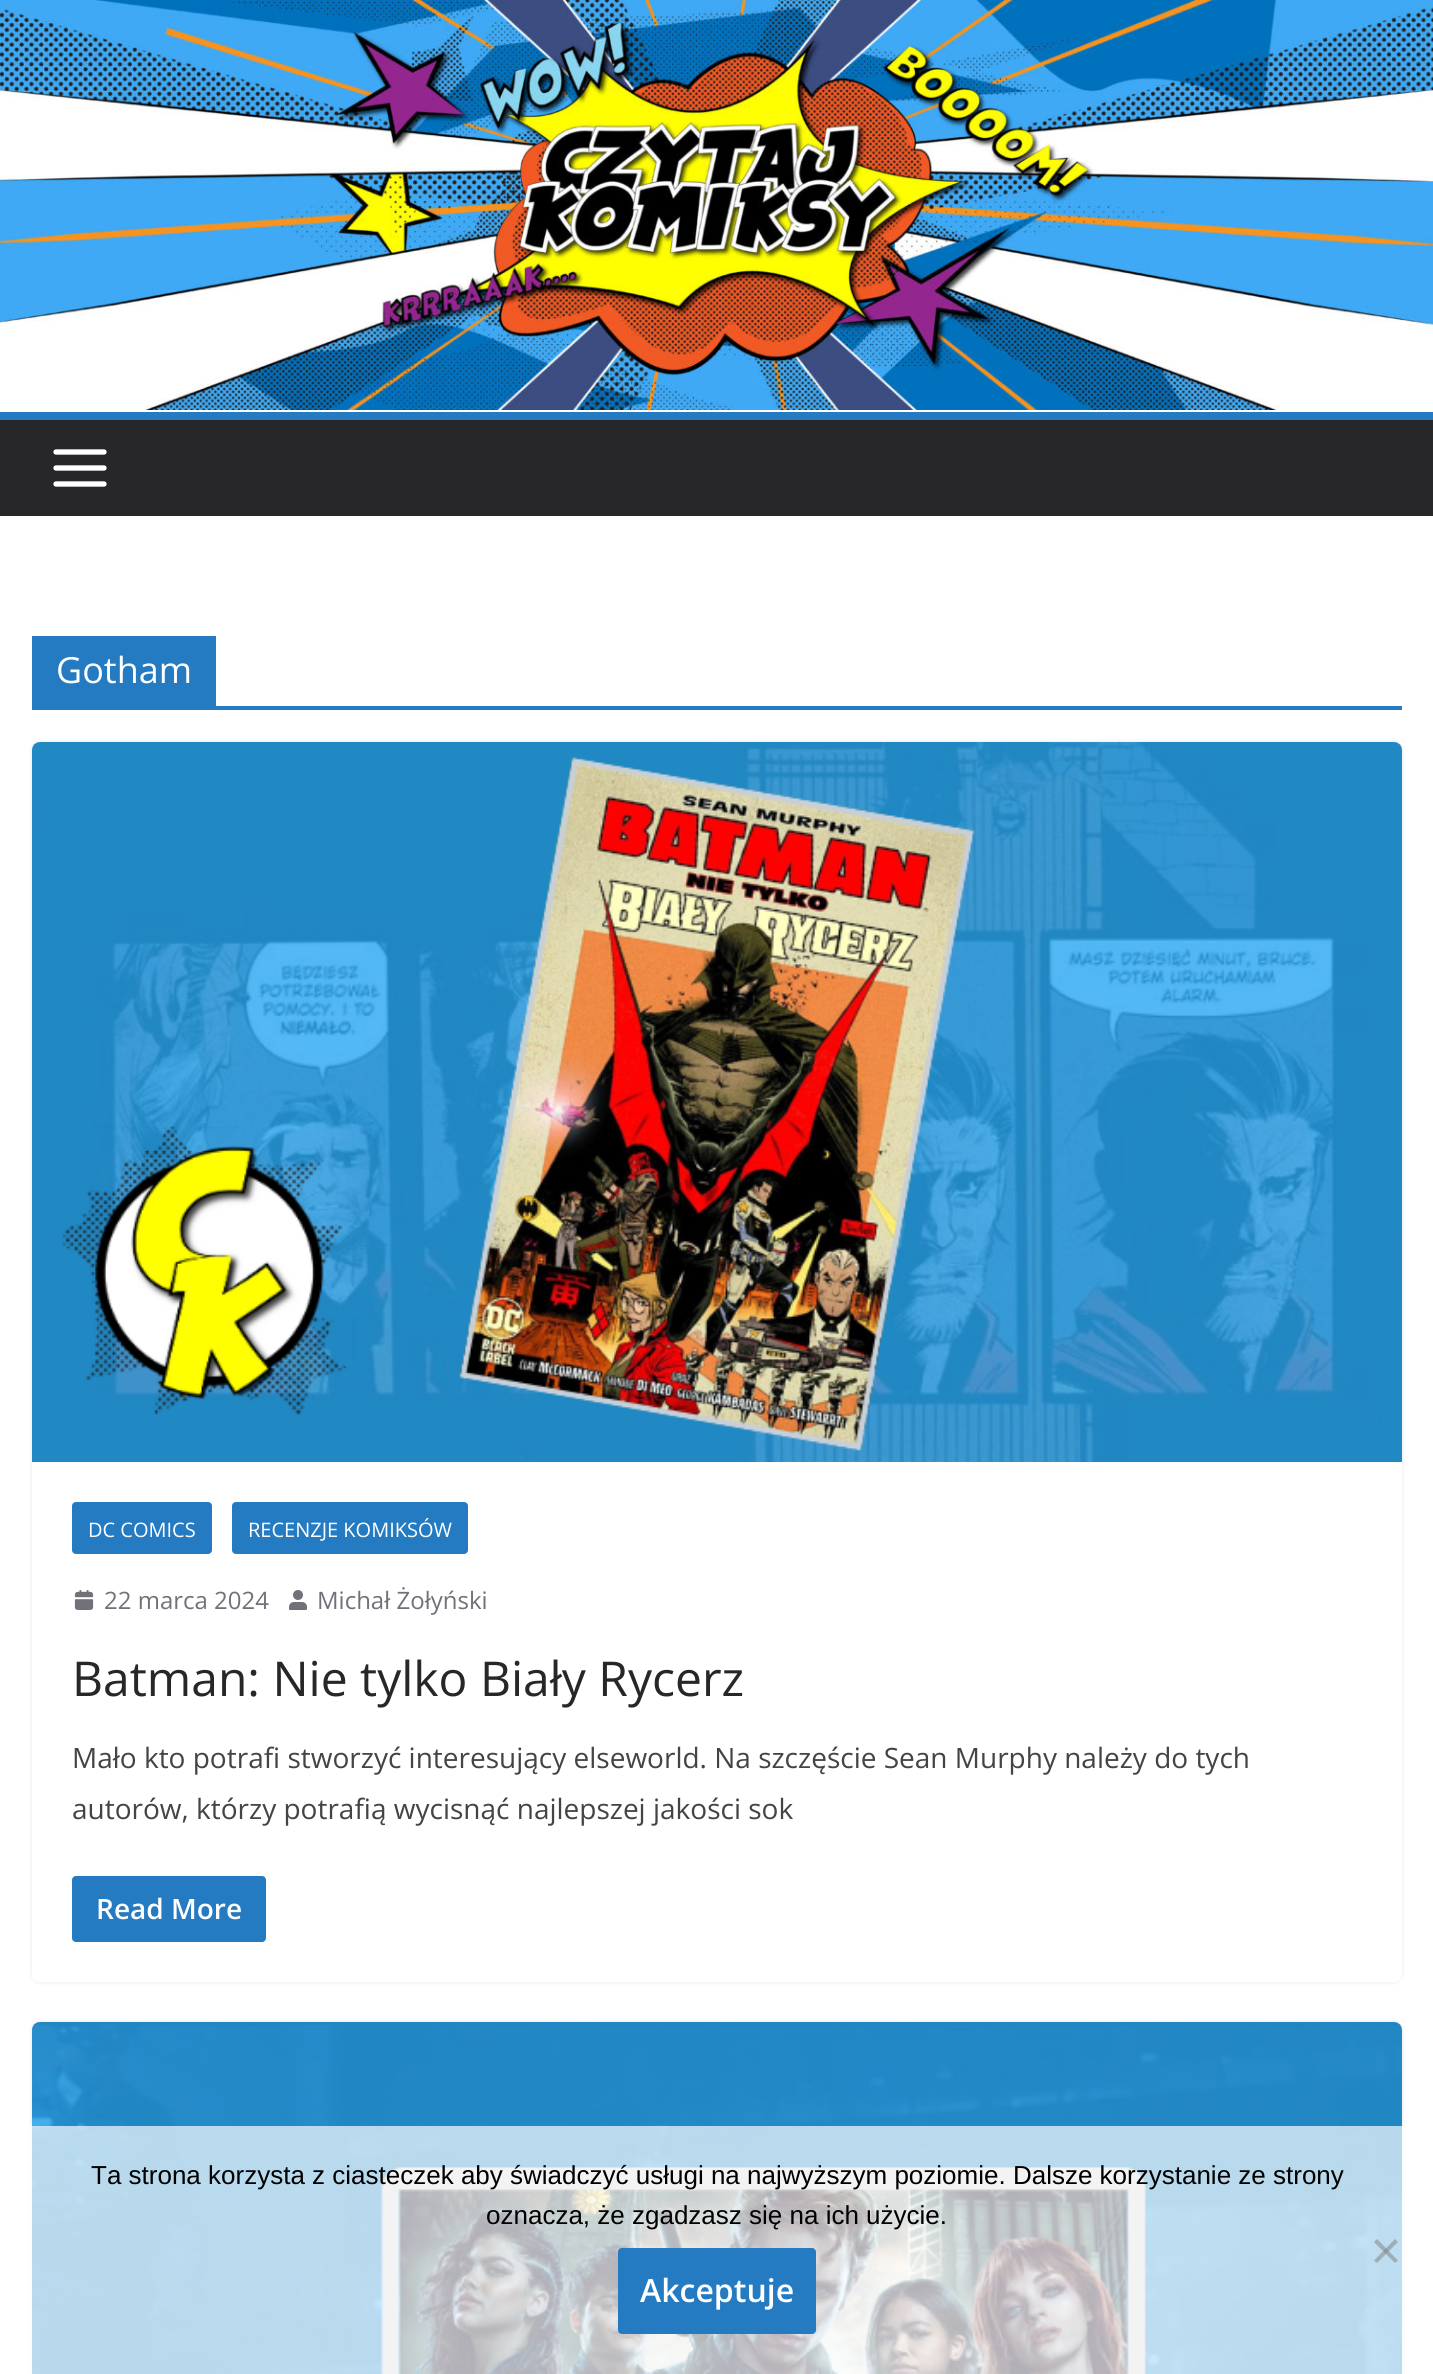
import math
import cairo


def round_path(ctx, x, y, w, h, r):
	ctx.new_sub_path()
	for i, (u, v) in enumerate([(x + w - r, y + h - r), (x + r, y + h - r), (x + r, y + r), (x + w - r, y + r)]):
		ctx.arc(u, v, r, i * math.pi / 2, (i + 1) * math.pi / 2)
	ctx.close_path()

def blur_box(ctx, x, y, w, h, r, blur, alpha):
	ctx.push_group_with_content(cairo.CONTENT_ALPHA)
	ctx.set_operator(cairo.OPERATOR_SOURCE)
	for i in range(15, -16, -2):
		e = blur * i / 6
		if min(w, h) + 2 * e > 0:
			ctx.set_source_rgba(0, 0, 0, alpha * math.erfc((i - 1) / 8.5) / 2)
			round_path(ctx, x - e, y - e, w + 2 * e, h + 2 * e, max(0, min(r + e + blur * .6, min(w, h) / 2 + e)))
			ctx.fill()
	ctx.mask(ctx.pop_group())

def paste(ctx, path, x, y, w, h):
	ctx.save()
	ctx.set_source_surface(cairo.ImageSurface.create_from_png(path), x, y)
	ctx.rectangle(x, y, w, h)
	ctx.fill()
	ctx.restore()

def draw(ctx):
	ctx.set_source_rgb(1, 1, 1)
	ctx.paint()
	paste(ctx, 'media/1.png', 0, 0, 1433, 410)
	ctx.set_source_rgb(0.153, 0.153, 0.165)
	ctx.rectangle(0, 420, 1433, 96)
	ctx.fill()
	ctx.set_source_rgb(0.145, 0.482, 0.757)
	ctx.rectangle(0, 412, 1433, 8)
	ctx.fill()
	paste(ctx, 'media/2.png', 53, 449, 54, 38)
	ctx.rectangle(32, 706, 1370, 4)
	ctx.fill()
	ctx.rectangle(32, 636, 184, 70)
	ctx.fill()
	ctx.select_font_face('Open Sans')
	ctx.set_font_size(36)
	ctx.set_source_rgb(1, 1, 1)
	ctx.move_to(56, 683)
	ctx.show_text('Gotham')
	ctx.save()
	ctx.set_fill_rule(cairo.FILL_RULE_EVEN_ODD)
	ctx.new_path()
	ctx.move_to(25, 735)
	ctx.line_to(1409, 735)
	ctx.line_to(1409, 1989)
	ctx.line_to(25, 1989)
	ctx.close_path()
	ctx.move_to(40, 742)
	ctx.line_to(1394, 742)
	ctx.curve_to(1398.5, 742, 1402, 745.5, 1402, 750)
	ctx.line_to(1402, 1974)
	ctx.curve_to(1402, 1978.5, 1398.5, 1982, 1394, 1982)
	ctx.line_to(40, 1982)
	ctx.curve_to(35.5, 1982, 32, 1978.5, 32, 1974)
	ctx.line_to(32, 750)
	ctx.curve_to(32, 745.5, 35.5, 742, 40, 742)
	ctx.close_path()
	ctx.clip()
	ctx.set_source_rgb(0.894, 0.894, 0.906)
	blur_box(ctx, 32, 742, 1370, 1240, 8, 2, 1)
	ctx.restore()
	paste(ctx, 'media/3.png', 32, 742, 1370, 720)
	ctx.set_source_rgb(0.145, 0.482, 0.757)
	round_path(ctx, 72, 1502, 140, 52, 4)
	ctx.fill()
	ctx.set_font_size(20)
	ctx.set_source_rgb(1, 1, 1)
	ctx.move_to(88, 1537)
	ctx.show_text('DC COMICS')
	ctx.set_source_rgb(0.145, 0.482, 0.757)
	round_path(ctx, 232, 1502, 236, 52, 4)
	ctx.fill()
	ctx.set_source_rgb(1, 1, 1)
	ctx.move_to(248, 1537)
	ctx.show_text('RECENZJE KOMIKSÓW')
	paste(ctx, 'media/4.png', 74, 1590, 20, 20)
	ctx.set_font_size(24)
	ctx.set_source_rgb(0.443, 0.443, 0.478)
	ctx.move_to(104, 1609)
	ctx.show_text('22 marca 2024')
	paste(ctx, 'media/5.png', 289, 1590, 18, 20)
	ctx.move_to(317, 1609)
	ctx.show_text('Michał Żołyński')
	ctx.set_font_size(48)
	ctx.set_source_rgb(0.153, 0.153, 0.165)
	ctx.move_to(72, 1696)
	ctx.show_text('Batman: Nie tylko Biały Rycerz')
	ctx.set_font_size(28)
	ctx.set_source_rgb(0.267, 0.267, 0.267)
	ctx.move_to(72, 1768)
	ctx.show_text('Mało kto potrafi stworzyć interesujący elseworld. Na szczęście Sean Murphy należy do tych')
	ctx.move_to(72, 1819)
	ctx.show_text('autorów, którzy potrafią wycisnąć najlepszej jakości sok')
	ctx.set_source_rgb(0.145, 0.482, 0.757)
	round_path(ctx, 72, 1876, 194, 66, 4)
	ctx.fill()
	ctx.select_font_face('Open Sans SemiBold')
	ctx.set_source_rgb(1, 1, 1)
	ctx.move_to(96, 1919)
	ctx.show_text('Read More')
	ctx.set_source_rgb(0.894, 0.894, 0.906)
	blur_box(ctx, 32, 2022, 1370, 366, 8, 2, 1)
	paste(ctx, 'media/6.png', 32, 2022, 1370, 352)
	ctx.set_source_rgba(1, 1, 1, 0.68)
	ctx.rectangle(30, 2126, 1374, 248)
	ctx.fill()
	ctx.select_font_face('Liberation Sans')
	ctx.set_font_size(26)
	ctx.set_source_rgb(0, 0, 0)
	ctx.move_to(91, 2184)
	ctx.show_text('Ta strona korzysta z ciasteczek aby świadczyć usługi na najwyższym poziomie. Dalsze korzystanie ze strony')
	ctx.move_to(486, 2224)
	ctx.show_text('oznacza, że zgadzasz się na ich użycie.')
	ctx.set_source_rgba(0.502, 0.502, 0.502, 0.5)
	ctx.new_path()
	ctx.move_to(1395, 2239)
	ctx.line_to(1398, 2242)
	ctx.line_to(1377, 2263)
	ctx.line_to(1374, 2260.5)
	ctx.close_path()
	ctx.fill()
	ctx.new_path()
	ctx.move_to(1374, 2242)
	ctx.line_to(1377, 2239)
	ctx.line_to(1398, 2260.5)
	ctx.line_to(1395, 2263)
	ctx.close_path()
	ctx.fill()
	ctx.set_source_rgb(0.145, 0.482, 0.757)
	round_path(ctx, 619, 2249, 196, 84, 3)
	ctx.fill_preserve()
	ctx.stroke()
	ctx.select_font_face('Open Sans SemiBold')
	ctx.set_font_size(32)
	ctx.set_source_rgb(1, 1, 1)
	ctx.move_to(640, 2302)
	ctx.show_text('Akceptuje')


surface = cairo.ImageSurface(cairo.FORMAT_RGB24, 1433, 2374)
ctx = cairo.Context(surface)
options = cairo.FontOptions()
options.set_hint_metrics(cairo.HINT_METRICS_OFF)
options.set_hint_style(cairo.HINT_STYLE_NONE)
ctx.set_font_options(options)
ctx.set_miter_limit(4)
draw(ctx)
surface.write_to_png('image.png')
